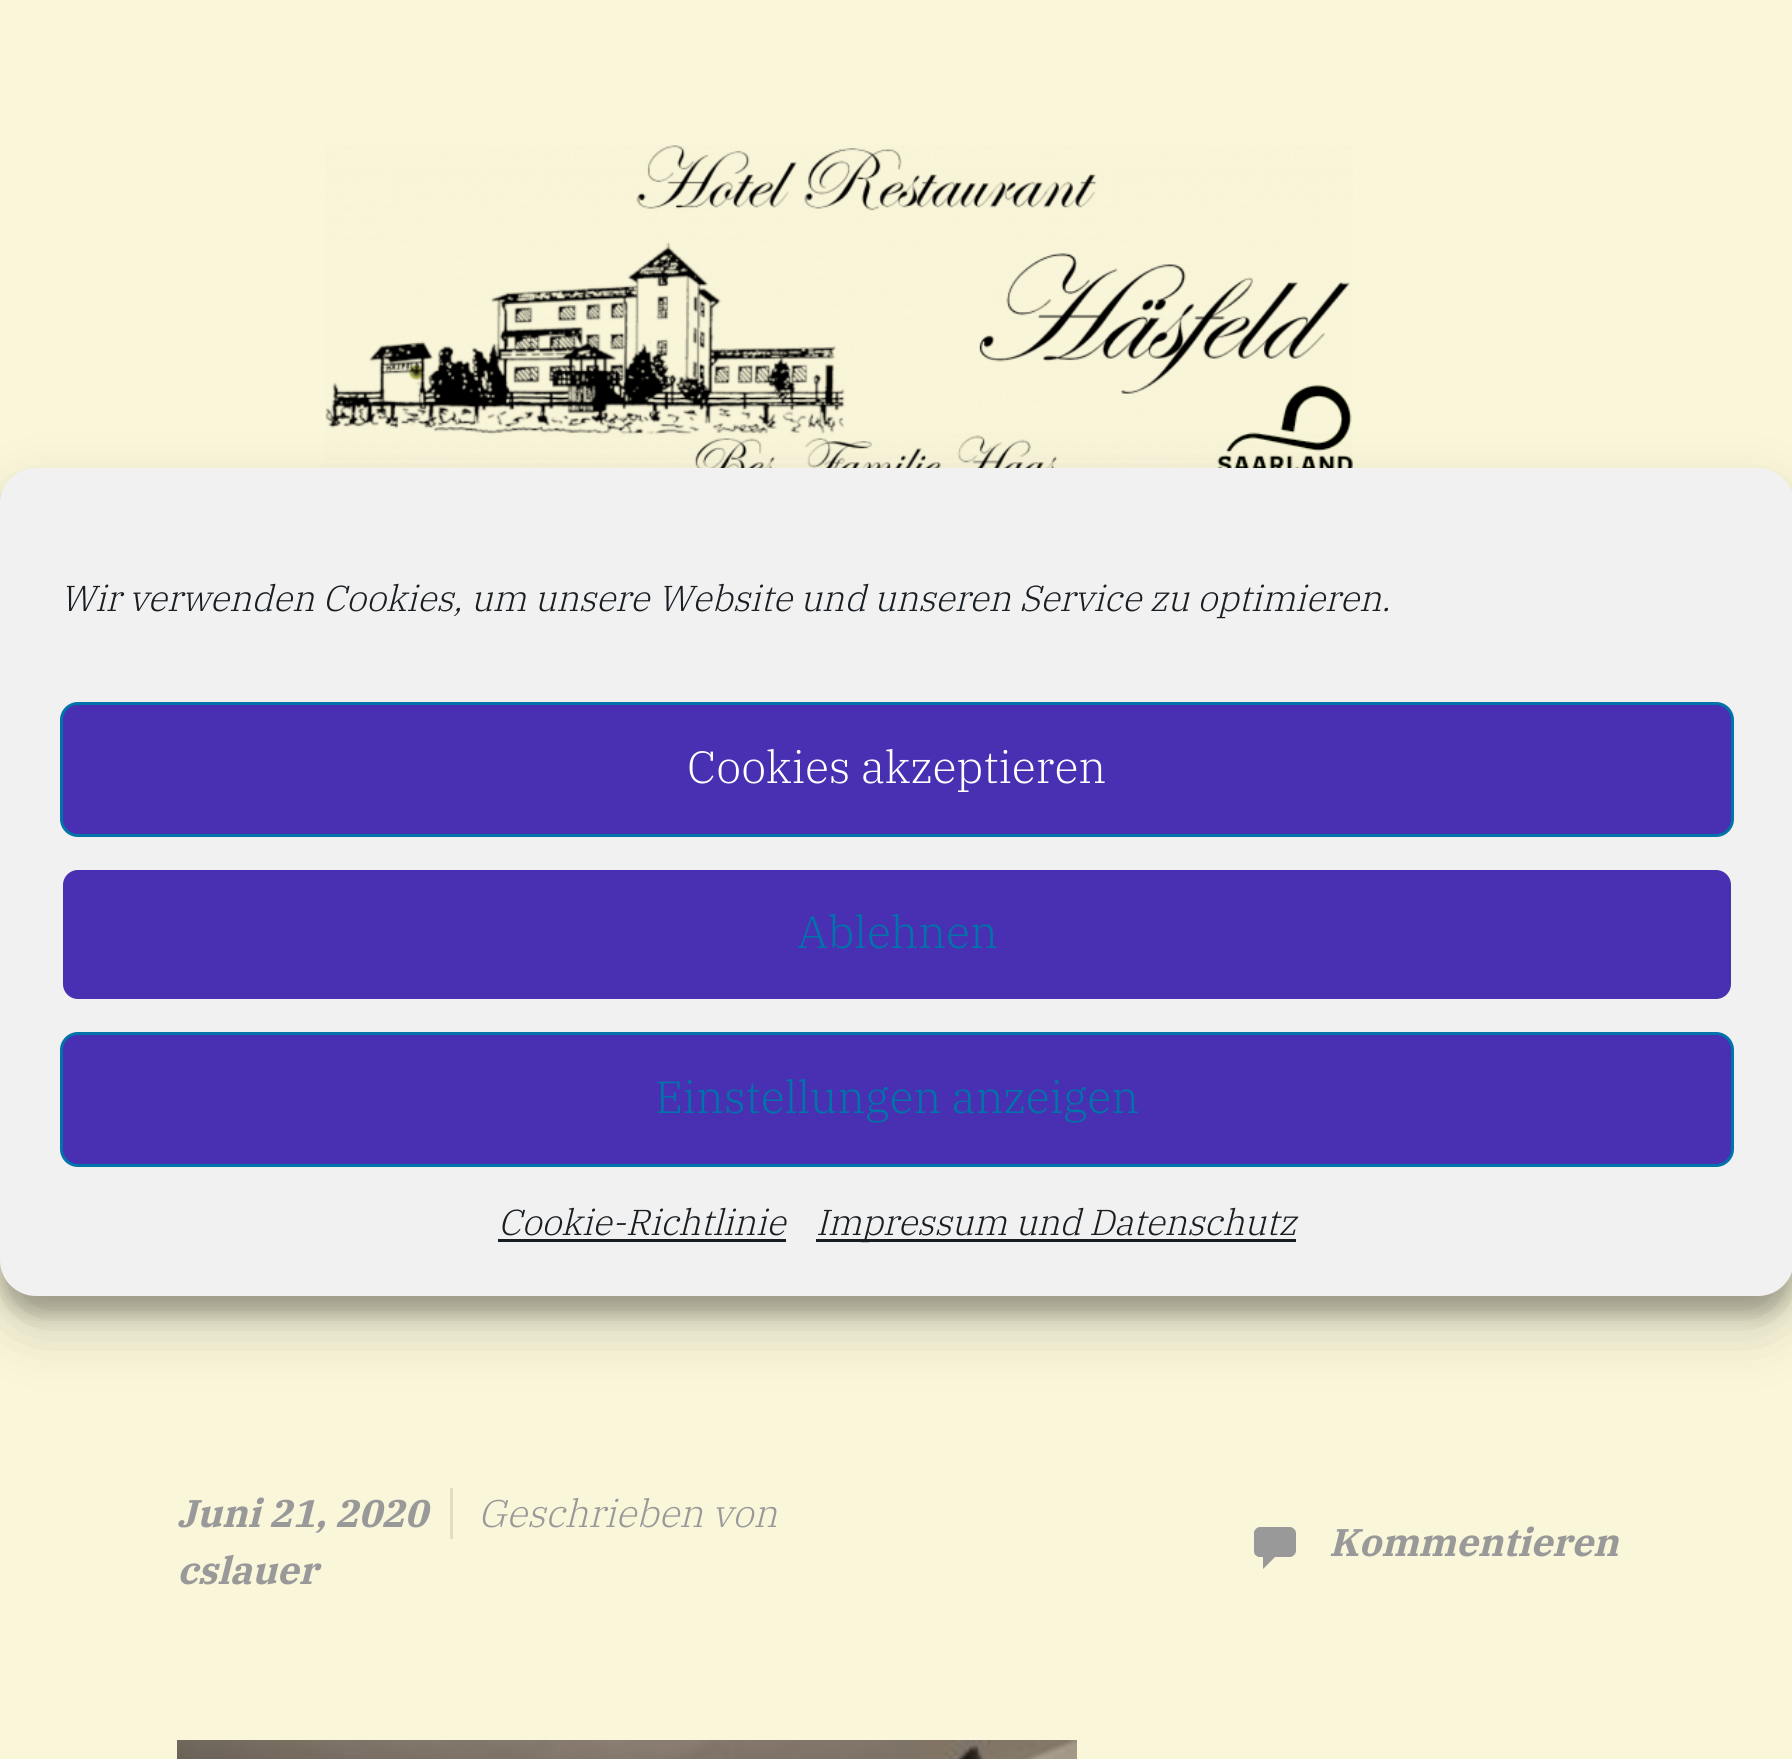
import math
import cairo


def round_path(ctx, x, y, w, h, r):
	ctx.new_sub_path()
	for i, (u, v) in enumerate([(x + w - r, y + h - r), (x + r, y + h - r), (x + r, y + r), (x + w - r, y + r)]):
		ctx.arc(u, v, r, i * math.pi / 2, (i + 1) * math.pi / 2)
	ctx.close_path()

def blur_box(ctx, x, y, w, h, r, blur, alpha):
	ctx.push_group_with_content(cairo.CONTENT_ALPHA)
	ctx.set_operator(cairo.OPERATOR_SOURCE)
	for i in range(15, -16, -2):
		e = blur * i / 6
		if min(w, h) + 2 * e > 0:
			ctx.set_source_rgba(0, 0, 0, alpha * math.erfc((i - 1) / 8.5) / 2)
			round_path(ctx, x - e, y - e, w + 2 * e, h + 2 * e, max(0, min(r + e + blur * .6, min(w, h) / 2 + e)))
			ctx.fill()
	ctx.mask(ctx.pop_group())

def paste(ctx, path, x, y, w, h):
	ctx.save()
	ctx.set_source_surface(cairo.ImageSurface.create_from_png(path), x, y)
	ctx.rectangle(x, y, w, h)
	ctx.fill()
	ctx.restore()

def draw(ctx):
	ctx.set_source_rgb(0.976, 0.961, 0.851)
	ctx.paint()
	paste(ctx, 'media/1.png', 325, 145, 1028, 323)
	ctx.set_source_rgb(0, 0, 0)
	blur_box(ctx, 0, 486, 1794, 828, 36, 9, 0.23)
	blur_box(ctx, 0, 498, 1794, 828, 36, 30, 0.19)
	ctx.set_source_rgb(0.945, 0.945, 0.945)
	round_path(ctx, 0, 468, 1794, 828, 36)
	ctx.fill()
	ctx.select_font_face('IBM Plex Serif Light', cairo.FONT_SLANT_ITALIC)
	ctx.set_font_size(36)
	ctx.set_source_rgb(0.098, 0.118, 0.137)
	ctx.move_to(60, 611)
	ctx.show_text('Wir verwenden Cookies, um unsere Website und unseren Service zu optimieren.')
	ctx.set_source_rgb(0.286, 0.184, 0.694)
	round_path(ctx, 61.5, 703.5, 1671, 132, 16.5)
	ctx.fill_preserve()
	ctx.set_source_rgb(0, 0.451, 0.667)
	ctx.set_line_width(3)
	ctx.stroke()
	ctx.select_font_face('IBM Plex Serif Light')
	ctx.set_font_size(45)
	ctx.set_source_rgb(1, 1, 1)
	ctx.move_to(687, 783)
	ctx.show_text('Cookies akzeptieren')
	ctx.set_source_rgb(0.286, 0.184, 0.694)
	round_path(ctx, 61.5, 868.5, 1671, 132, 16.5)
	ctx.fill_preserve()
	ctx.set_source_rgb(0.945, 0.945, 0.945)
	ctx.stroke()
	ctx.set_source_rgb(0, 0.451, 0.667)
	ctx.move_to(797, 948)
	ctx.show_text('Ablehnen')
	ctx.set_source_rgb(0.286, 0.184, 0.694)
	round_path(ctx, 61.5, 1033.5, 1671, 132, 16.5)
	ctx.fill_preserve()
	ctx.set_source_rgb(0, 0.451, 0.667)
	ctx.stroke()
	ctx.move_to(655, 1113)
	ctx.show_text('Einstellungen anzeigen')
	ctx.select_font_face('IBM Plex Serif Light', cairo.FONT_SLANT_ITALIC)
	ctx.set_font_size(36)
	ctx.set_source_rgb(0.098, 0.118, 0.137)
	ctx.move_to(498, 1235)
	ctx.show_text('Cookie-Richtlinie')
	ctx.rectangle(498, 1239, 288, 3)
	ctx.fill()
	ctx.rectangle(816, 1239, 480, 3)
	ctx.fill()
	ctx.move_to(816, 1235)
	ctx.show_text('Impressum und Datenschutz')
	ctx.select_font_face('IBM Plex Serif', cairo.FONT_SLANT_ITALIC, cairo.FONT_WEIGHT_BOLD)
	ctx.set_font_size(38.5)
	ctx.set_source_rgb(0.6, 0.6, 0.6)
	ctx.move_to(177, 1527)
	ctx.show_text('Juni 21, 2020')
	ctx.set_source_rgb(0.878, 0.867, 0.765)
	ctx.rectangle(450, 1488, 3, 51)
	ctx.fill()
	ctx.select_font_face('IBM Plex Serif Light', cairo.FONT_SLANT_ITALIC)
	ctx.set_source_rgb(0.6, 0.6, 0.6)
	ctx.move_to(478, 1527)
	ctx.show_text('Geschrieben von')
	ctx.select_font_face('IBM Plex Serif', cairo.FONT_SLANT_ITALIC, cairo.FONT_WEIGHT_BOLD)
	ctx.move_to(177, 1584)
	ctx.show_text('cslauer')
	paste(ctx, 'media/2.png', 1254, 1527, 42, 42)
	ctx.move_to(1329, 1556)
	ctx.show_text('Kommentieren')
	paste(ctx, 'media/3.png', 177, 1740, 900, 19)


surface = cairo.ImageSurface(cairo.FORMAT_RGB24, 1792, 1759)
ctx = cairo.Context(surface)
options = cairo.FontOptions()
options.set_hint_metrics(cairo.HINT_METRICS_OFF)
options.set_hint_style(cairo.HINT_STYLE_NONE)
ctx.set_font_options(options)
ctx.set_miter_limit(4)
draw(ctx)
surface.write_to_png('image.png')
